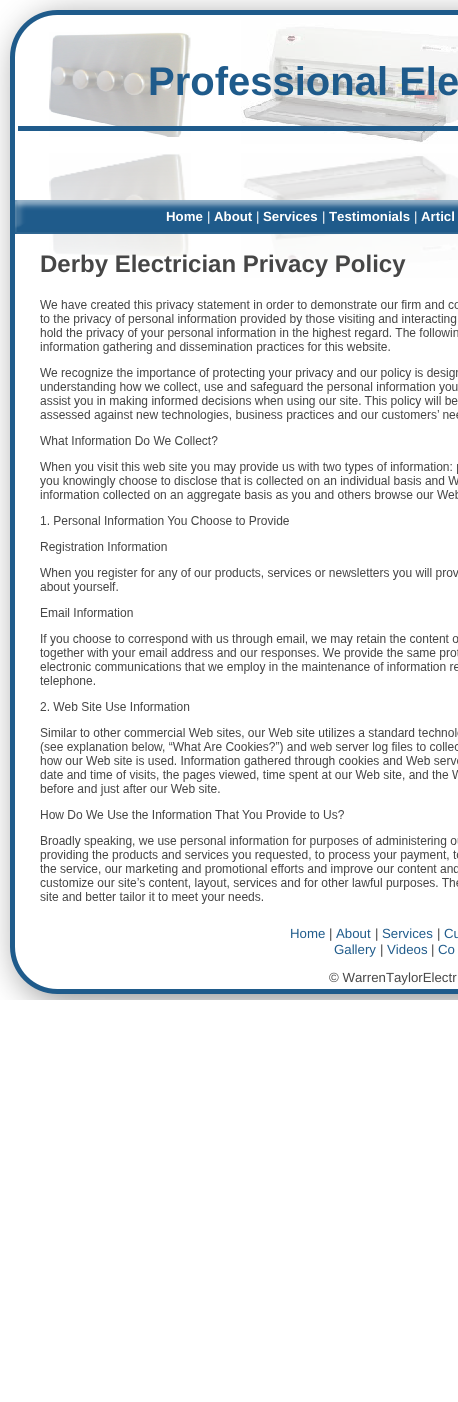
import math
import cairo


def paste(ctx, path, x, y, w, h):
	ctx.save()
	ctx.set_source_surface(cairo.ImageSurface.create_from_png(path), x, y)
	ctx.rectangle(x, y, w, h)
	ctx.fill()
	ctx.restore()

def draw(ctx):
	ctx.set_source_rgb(1, 1, 1)
	ctx.paint()
	paste(ctx, 'media/1.png', 0, 0, 458, 1000)
	ctx.select_font_face('Liberation Sans', cairo.FONT_SLANT_NORMAL, cairo.FONT_WEIGHT_BOLD)
	ctx.set_font_size(40)
	ctx.set_source_rgb(0.122, 0.357, 0.545)
	ctx.move_to(148, 95)
	ctx.show_text('Professional Ele')
	ctx.rectangle(18, 126, 440, 5)
	ctx.fill()
	paste(ctx, 'media/2.png', 15, 200, 443, 34)
	ctx.set_font_size(13.25)
	ctx.set_source_rgb(1, 1, 1)
	ctx.move_to(166, 221)
	ctx.show_text('Home')
	ctx.select_font_face('Liberation Sans')
	ctx.move_to(207, 221)
	ctx.show_text('|')
	ctx.select_font_face('Liberation Sans', cairo.FONT_SLANT_NORMAL, cairo.FONT_WEIGHT_BOLD)
	ctx.move_to(214, 221)
	ctx.show_text('About')
	ctx.select_font_face('Liberation Sans')
	ctx.move_to(256, 221)
	ctx.show_text('|')
	ctx.select_font_face('Liberation Sans', cairo.FONT_SLANT_NORMAL, cairo.FONT_WEIGHT_BOLD)
	ctx.move_to(263, 221)
	ctx.show_text('Services')
	ctx.select_font_face('Liberation Sans')
	ctx.move_to(322, 221)
	ctx.show_text('|')
	ctx.select_font_face('Liberation Sans', cairo.FONT_SLANT_NORMAL, cairo.FONT_WEIGHT_BOLD)
	ctx.move_to(329, 221)
	ctx.show_text('Testimonials')
	ctx.select_font_face('Liberation Sans')
	ctx.move_to(414, 221)
	ctx.show_text('|')
	ctx.select_font_face('Liberation Sans', cairo.FONT_SLANT_NORMAL, cairo.FONT_WEIGHT_BOLD)
	ctx.move_to(421, 221)
	ctx.show_text('Articl')
	ctx.set_font_size(24)
	ctx.set_source_rgb(0.275, 0.275, 0.275)
	ctx.move_to(40, 272)
	ctx.show_text('Derby Electrician Privacy Policy')
	paste(ctx, 'media/3.png', 40, 300, 418, 604)
	ctx.select_font_face('Liberation Sans')
	ctx.set_font_size(13.25)
	ctx.set_source_rgb(0.122, 0.357, 0.545)
	ctx.move_to(290, 938)
	ctx.show_text('Home')
	ctx.set_source_rgb(0.275, 0.275, 0.275)
	ctx.move_to(329, 938)
	ctx.show_text('|')
	ctx.set_source_rgb(0.122, 0.357, 0.545)
	ctx.move_to(336, 938)
	ctx.show_text('About')
	ctx.set_source_rgb(0.275, 0.275, 0.275)
	ctx.move_to(375, 938)
	ctx.show_text('|')
	ctx.set_source_rgb(0.122, 0.357, 0.545)
	ctx.move_to(382, 938)
	ctx.show_text('Services')
	ctx.set_source_rgb(0.275, 0.275, 0.275)
	ctx.move_to(437, 938)
	ctx.show_text('|')
	ctx.set_source_rgb(0.122, 0.357, 0.545)
	ctx.move_to(444, 938)
	ctx.show_text('Cu')
	ctx.move_to(334, 954)
	ctx.show_text('Gallery')
	ctx.set_source_rgb(0.275, 0.275, 0.275)
	ctx.move_to(380, 954)
	ctx.show_text('|')
	ctx.set_source_rgb(0.122, 0.357, 0.545)
	ctx.move_to(387, 954)
	ctx.show_text('Videos')
	ctx.set_source_rgb(0.275, 0.275, 0.275)
	ctx.move_to(431, 954)
	ctx.show_text('|')
	ctx.set_source_rgb(0.122, 0.357, 0.545)
	ctx.move_to(438, 954)
	ctx.show_text('Co')
	ctx.set_source_rgb(0.275, 0.275, 0.275)
	ctx.move_to(329, 982)
	ctx.show_text('© WarrenTaylorElectr')


surface = cairo.ImageSurface(cairo.FORMAT_RGB24, 458, 1402)
ctx = cairo.Context(surface)
options = cairo.FontOptions()
options.set_hint_metrics(cairo.HINT_METRICS_OFF)
options.set_hint_style(cairo.HINT_STYLE_NONE)
ctx.set_font_options(options)
ctx.set_miter_limit(4)
draw(ctx)
surface.write_to_png('image.png')
